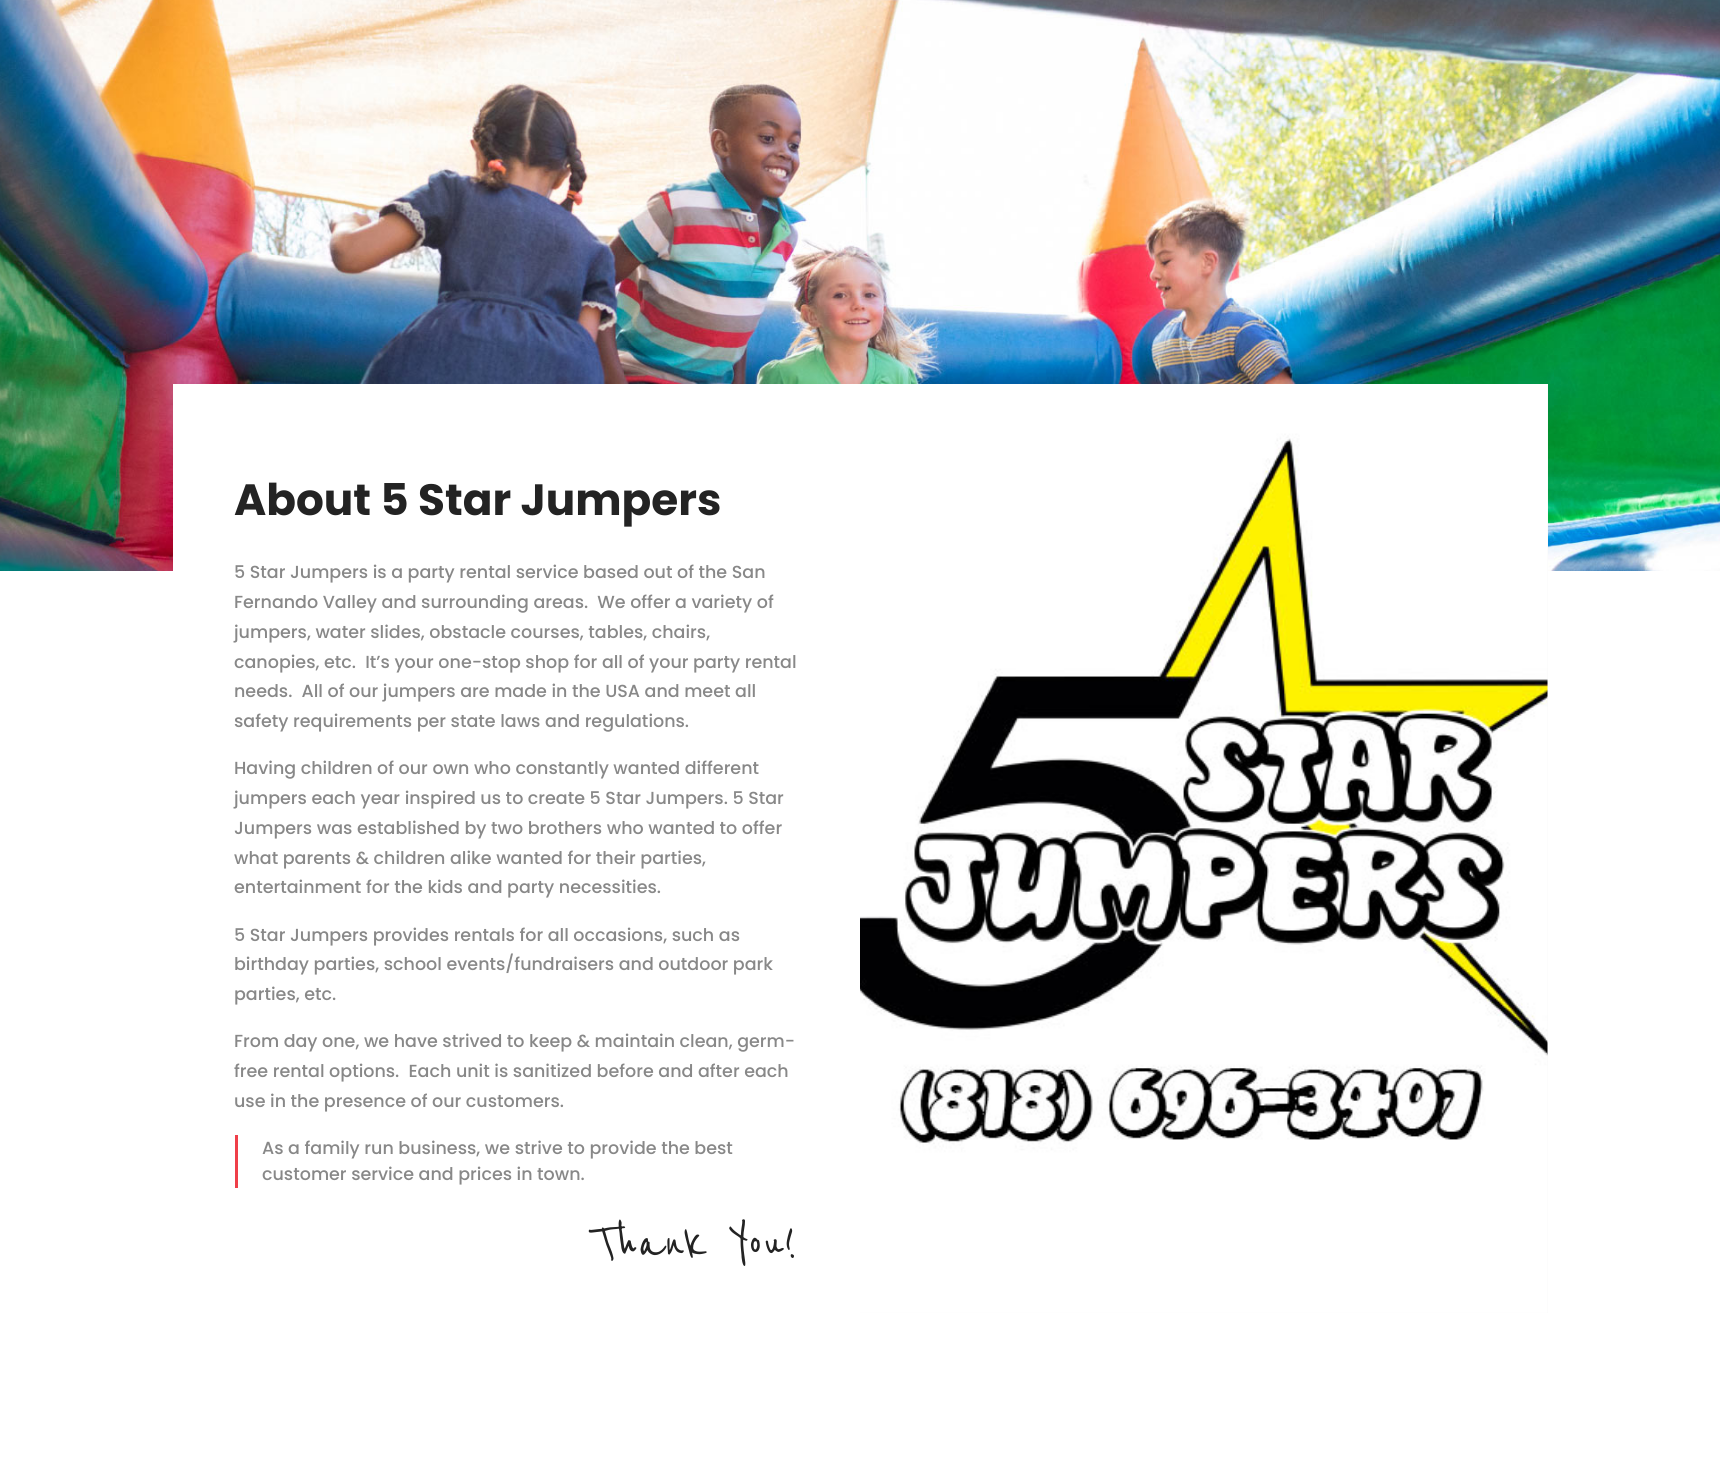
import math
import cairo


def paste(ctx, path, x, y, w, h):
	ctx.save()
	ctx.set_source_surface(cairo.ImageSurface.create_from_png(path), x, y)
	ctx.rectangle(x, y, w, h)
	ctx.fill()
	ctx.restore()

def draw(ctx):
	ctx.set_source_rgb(1, 1, 1)
	ctx.paint()
	paste(ctx, 'media/1.png', 0, 0, 1720, 571)
	ctx.set_source_rgb(1, 1, 1)
	ctx.rectangle(173, 384, 687, 187)
	ctx.fill()
	ctx.select_font_face('Poppins', cairo.FONT_SLANT_NORMAL, cairo.FONT_WEIGHT_BOLD)
	ctx.set_font_size(43.75)
	ctx.set_source_rgb(0.137, 0.137, 0.137)
	ctx.move_to(234, 515)
	ctx.show_text('About 5 Star Jumpers')
	ctx.select_font_face('Poppins Medium')
	ctx.set_font_size(17.5)
	ctx.set_source_rgb(0.533, 0.533, 0.533)
	for x, y, s in [
		(234, 578, '5 Star Jumpers is a party rental service based out of the San'),
		(234, 608, 'Fernando Valley and surrounding areas.  We offer a variety of'),
		(234, 638, 'jumpers, water slides, obstacle courses, tables, chairs,'),
		(234, 668, 'canopies, etc.  It’s your one-stop shop for all of your party rental'),
		(234, 697, 'needs.  All of our jumpers are made in the USA and meet all'),
		(234, 727, 'safety requirements per state laws and regulations.'),
		(234, 774, 'Having children of our own who constantly wanted different'),
		(234, 804, 'jumpers each year inspired us to create 5 Star Jumpers. 5 Star'),
		(234, 834, 'Jumpers was established by two brothers who wanted to offer'),
		(234, 864, 'what parents & children alike wanted for their parties,'),
		(234, 893, 'entertainment for the kids and party necessities.'),
		(234, 941, '5 Star Jumpers provides rentals for all occasions, such as'),
		(234, 970, 'birthday parties, school events/fundraisers and outdoor park'),
		(234, 1000, 'parties, etc.'),
		(234, 1047, 'From day one, we have strived to keep & maintain clean, germ-'),
		(234, 1077, 'free rental options.  Each unit is sanitized before and after each'),
		(234, 1107, 'use in the presence of our customers.'),
	]:
		ctx.move_to(x, y)
		ctx.show_text(s)
	ctx.set_source_rgb(0.937, 0.247, 0.286)
	ctx.rectangle(235, 1135, 3, 53)
	ctx.fill()
	ctx.set_source_rgb(0.533, 0.533, 0.533)
	ctx.move_to(262, 1154)
	ctx.show_text('As a family run business, we strive to provide the best')
	ctx.move_to(262, 1180)
	ctx.show_text('customer service and prices in town.')
	ctx.select_font_face('Reenie Beanie Medium')
	ctx.set_font_size(56)
	ctx.set_source_rgb(0.137, 0.137, 0.137)
	ctx.move_to(592, 1258)
	ctx.show_text('Thank You!')
	ctx.set_source_rgb(0.976, 0.976, 0.976)
	ctx.rectangle(860, 384, 688, 929)
	ctx.fill()
	paste(ctx, 'media/2.png', 860, 384, 688, 929)


surface = cairo.ImageSurface(cairo.FORMAT_RGB24, 1720, 1484)
ctx = cairo.Context(surface)
options = cairo.FontOptions()
options.set_hint_metrics(cairo.HINT_METRICS_OFF)
options.set_hint_style(cairo.HINT_STYLE_NONE)
ctx.set_font_options(options)
ctx.set_miter_limit(4)
draw(ctx)
surface.write_to_png('image.png')
